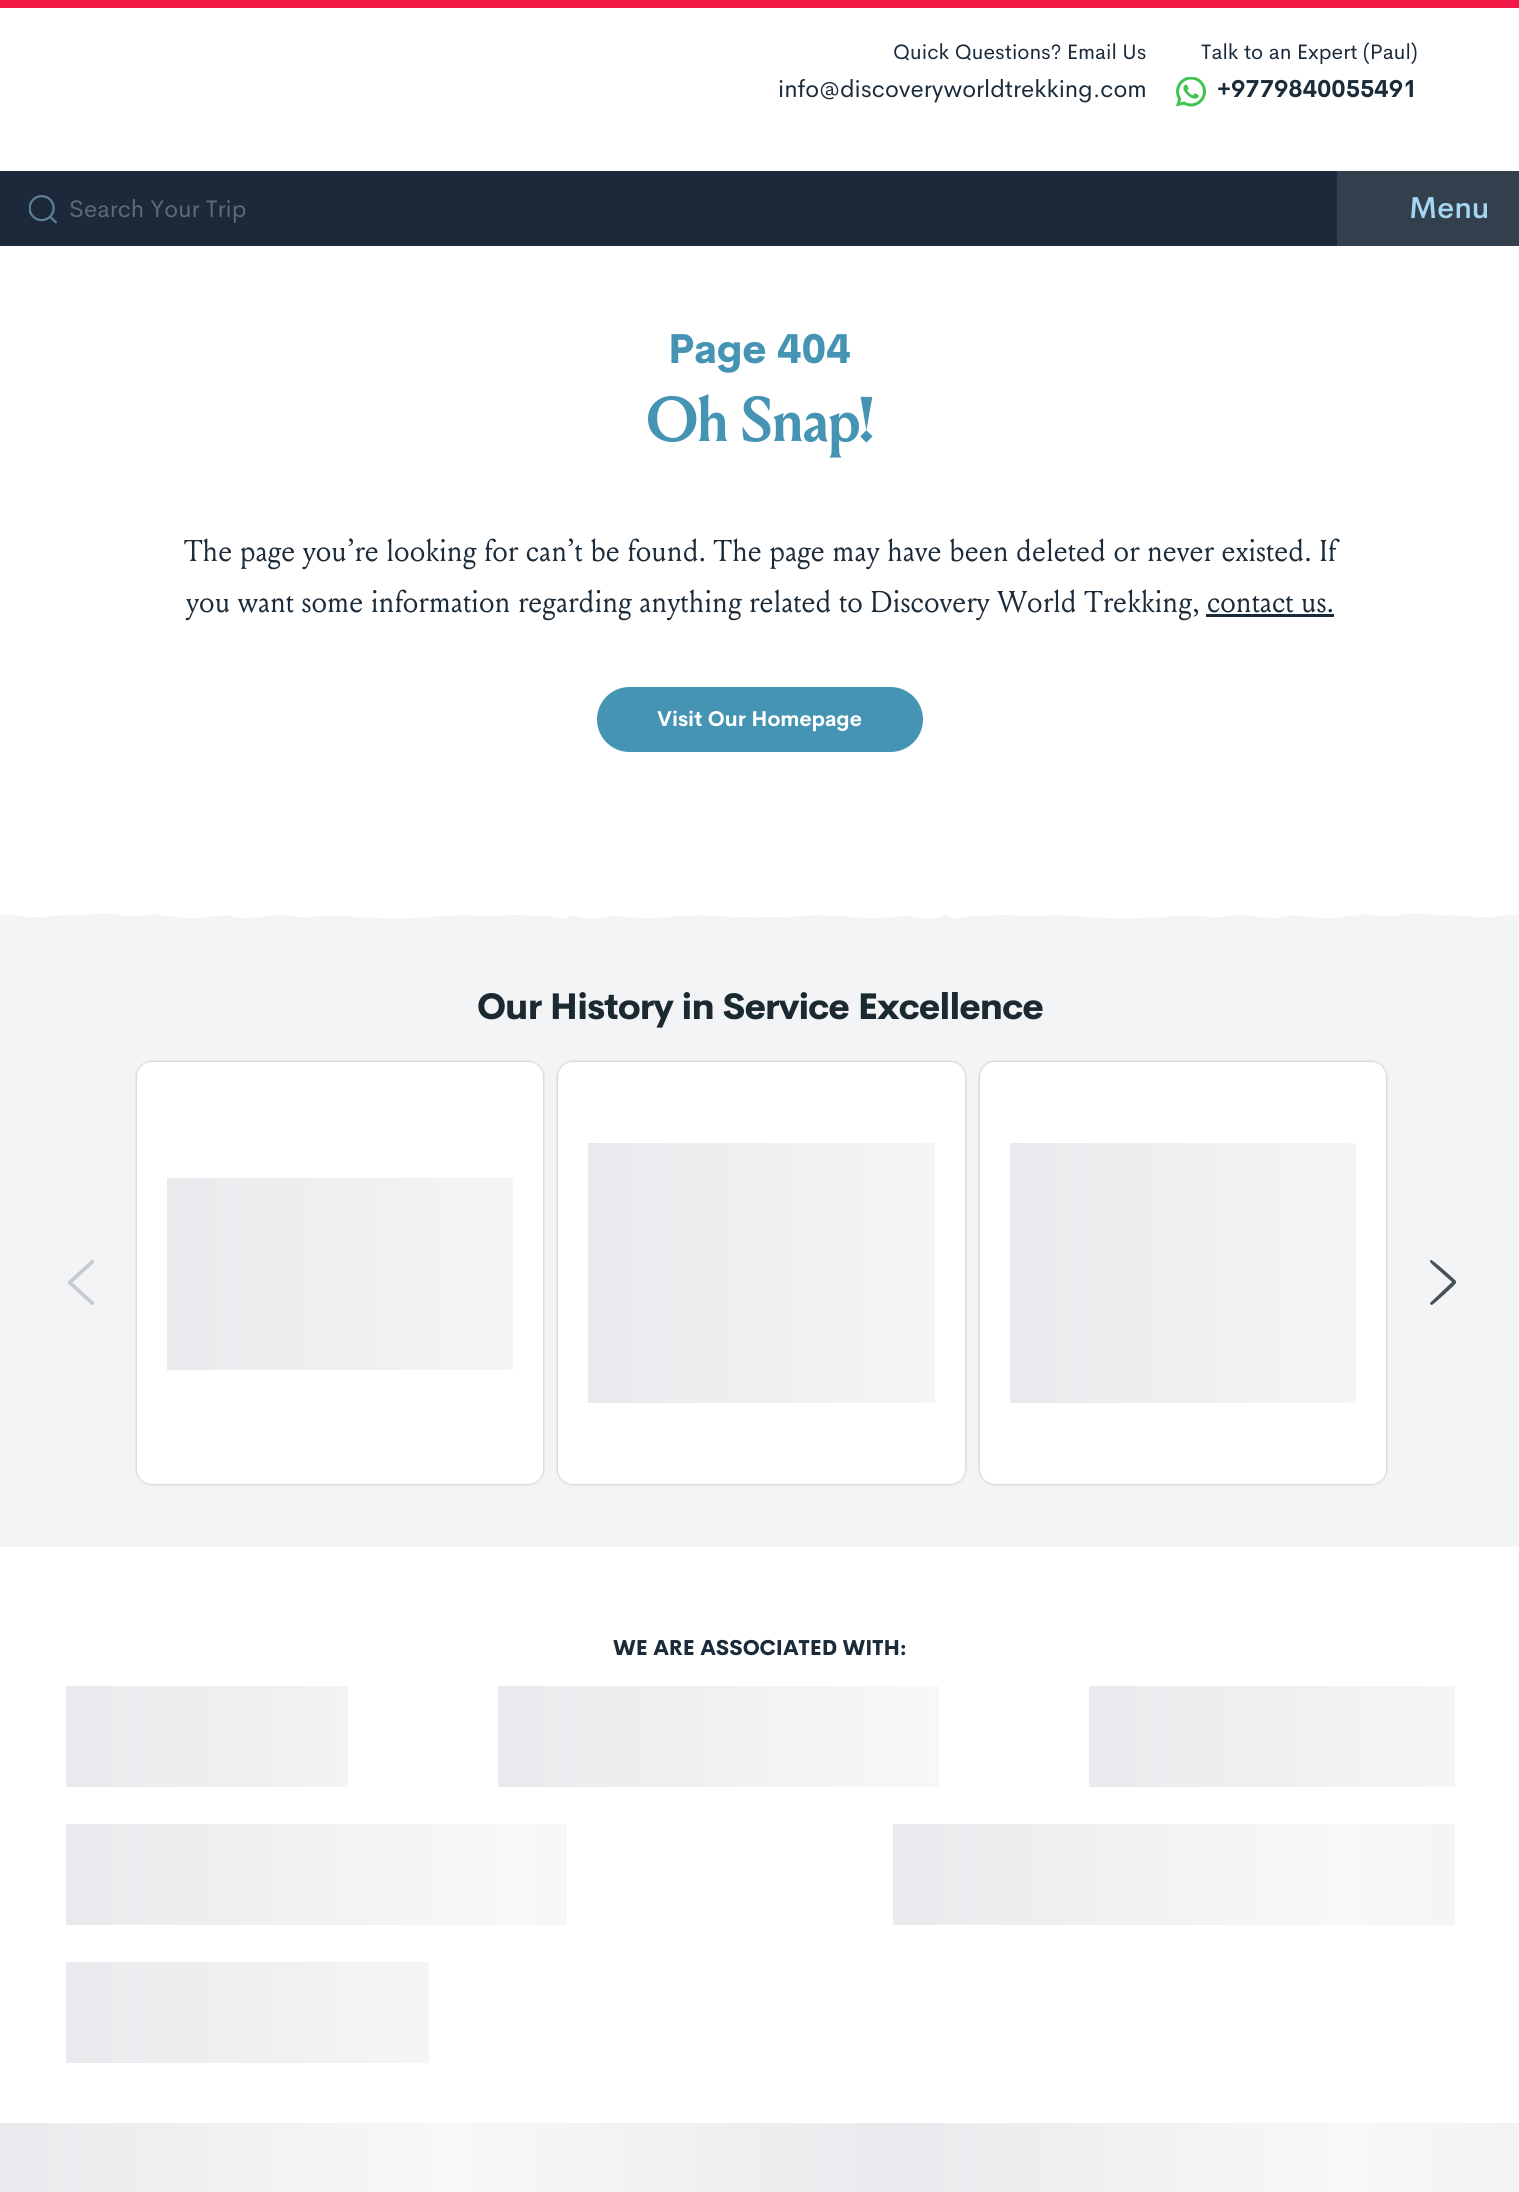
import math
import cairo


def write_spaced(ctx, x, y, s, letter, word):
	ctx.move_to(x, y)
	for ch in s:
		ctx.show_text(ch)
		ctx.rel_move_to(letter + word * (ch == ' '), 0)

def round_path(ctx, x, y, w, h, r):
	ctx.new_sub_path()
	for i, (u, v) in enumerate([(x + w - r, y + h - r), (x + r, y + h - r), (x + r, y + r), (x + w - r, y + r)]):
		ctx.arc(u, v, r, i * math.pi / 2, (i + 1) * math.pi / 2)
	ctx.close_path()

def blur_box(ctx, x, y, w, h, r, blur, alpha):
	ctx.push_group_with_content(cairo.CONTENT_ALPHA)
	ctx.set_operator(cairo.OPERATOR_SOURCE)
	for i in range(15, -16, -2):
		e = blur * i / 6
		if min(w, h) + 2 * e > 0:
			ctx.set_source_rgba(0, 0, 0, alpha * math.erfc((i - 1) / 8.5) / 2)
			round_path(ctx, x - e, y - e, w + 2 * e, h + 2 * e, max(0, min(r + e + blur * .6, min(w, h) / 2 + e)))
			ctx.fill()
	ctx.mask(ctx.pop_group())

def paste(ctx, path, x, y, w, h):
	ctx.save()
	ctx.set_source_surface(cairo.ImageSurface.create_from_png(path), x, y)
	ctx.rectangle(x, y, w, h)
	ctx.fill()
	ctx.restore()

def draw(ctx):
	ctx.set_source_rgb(1, 1, 1)
	ctx.paint()
	ctx.set_source_rgb(0.945, 0.098, 0.275)
	ctx.rectangle(0, 0, 1519, 8)
	ctx.fill()
	ctx.select_font_face('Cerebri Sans')
	ctx.set_font_size(21)
	ctx.set_source_rgb(0.106, 0.169, 0.227)
	ctx.move_to(893, 59)
	ctx.show_text('Quick Questions? Email Us')
	ctx.set_font_size(24)
	ctx.move_to(778, 97)
	ctx.show_text('info@discoveryworldtrekking.com')
	ctx.set_font_size(21)
	ctx.move_to(1201, 59)
	ctx.show_text('Talk to an Expert (Paul)')
	paste(ctx, 'media/1.png', 1176, 77, 30, 30)
	ctx.select_font_face('Cerebri Sans', cairo.FONT_SLANT_NORMAL, cairo.FONT_WEIGHT_BOLD)
	ctx.set_font_size(24)
	ctx.move_to(1217, 97)
	ctx.show_text('+9779840055491')
	ctx.set_source_rgb(0.106, 0.161, 0.227)
	ctx.rectangle(0, 171, 1337, 75)
	ctx.fill()
	paste(ctx, 'media/2.png', 29, 195, 28, 29)
	ctx.select_font_face('Cerebri Sans')
	ctx.set_source_rgb(0.373, 0.412, 0.459)
	ctx.move_to(69, 217)
	ctx.show_text('Search Your Trip')
	ctx.set_source_rgb(0.196, 0.251, 0.306)
	ctx.rectangle(1337, 171, 182, 75)
	ctx.fill()
	ctx.select_font_face('Cerebri Sans Medium')
	ctx.set_font_size(30)
	ctx.set_source_rgb(0.643, 0.839, 0.953)
	ctx.move_to(1409, 218)
	ctx.show_text('Menu')
	ctx.select_font_face('Cerebri Sans ExtraBold')
	ctx.set_font_size(40.5)
	ctx.set_source_rgb(0.271, 0.58, 0.702)
	ctx.move_to(668, 363)
	ctx.show_text('Page 404')
	ctx.select_font_face('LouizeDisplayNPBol')
	ctx.set_font_size(63)
	ctx.move_to(647, 441)
	ctx.show_text('Oh Snap!')
	ctx.select_font_face('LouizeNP')
	ctx.set_font_size(30)
	ctx.set_source_rgb(0.106, 0.169, 0.227)
	ctx.move_to(184, 561)
	ctx.show_text('The page you’re looking for can’t be found. The page may have been deleted or never existed. If')
	ctx.move_to(186, 612)
	ctx.show_text('you want some information regarding anything related to Discovery World Trekking, contact us.')
	ctx.rectangle(1206, 614, 128, 3)
	ctx.fill()
	ctx.set_source_rgb(0.271, 0.58, 0.702)
	round_path(ctx, 597, 687, 326, 65, 32.5)
	ctx.fill()
	ctx.select_font_face('Cerebri Sans', cairo.FONT_SLANT_NORMAL, cairo.FONT_WEIGHT_BOLD)
	ctx.set_font_size(21)
	ctx.set_source_rgb(1, 1, 1)
	ctx.move_to(657, 726)
	ctx.show_text('Visit Our Homepage')
	ctx.set_source_rgb(0.953, 0.957, 0.961)
	ctx.rectangle(0, 924, 1519, 623)
	ctx.fill()
	paste(ctx, 'media/3.png', 0, 914, 1519, 10)
	ctx.select_font_face('Cerebri Sans ExtraBold')
	ctx.set_font_size(36)
	ctx.set_source_rgb(0.106, 0.161, 0.188)
	write_spaced(ctx, 477, 1019, 'Our History in Service Excellence', -0.75, 0)
	paste(ctx, 'media/4.png', 68, 1260, 26, 45)
	ctx.set_source_rgb(0, 0, 0)
	blur_box(ctx, 137, 1062, 406, 422, 15, 1.5, 0.28)
	ctx.set_source_rgb(1, 1, 1)
	round_path(ctx, 137, 1062, 406, 422, 15)
	ctx.fill()
	gradient = cairo.LinearGradient(167, 1274, 1067, 1274)
	gradient.add_color_stop_rgba(0, 0.914, 0.918, 0.929, 1)
	gradient.add_color_stop_rgba(0.5, 0.973, 0.973, 0.973, 1)
	gradient.add_color_stop_rgba(1, 0.914, 0.918, 0.929, 1)
	ctx.set_source(gradient)
	ctx.rectangle(167, 1178, 346, 192)
	ctx.fill()
	ctx.set_source_rgb(0, 0, 0)
	blur_box(ctx, 558, 1062, 407, 422, 15, 1.5, 0.28)
	ctx.set_source_rgb(1, 1, 1)
	round_path(ctx, 558, 1062, 407, 422, 15)
	ctx.fill()
	gradient = cairo.LinearGradient(588, 1273, 1488, 1273)
	gradient.add_color_stop_rgba(0, 0.914, 0.918, 0.929, 1)
	gradient.add_color_stop_rgba(0.5, 0.973, 0.973, 0.973, 1)
	gradient.add_color_stop_rgba(1, 0.914, 0.918, 0.929, 1)
	ctx.set_source(gradient)
	ctx.rectangle(588, 1143, 347, 260)
	ctx.fill()
	ctx.set_source_rgb(0, 0, 0)
	blur_box(ctx, 980, 1062, 406, 422, 15, 1.5, 0.28)
	ctx.set_source_rgb(1, 1, 1)
	round_path(ctx, 980, 1062, 406, 422, 15)
	ctx.fill()
	gradient = cairo.LinearGradient(1010, 1273, 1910, 1273)
	gradient.add_color_stop_rgba(0, 0.914, 0.918, 0.929, 1)
	gradient.add_color_stop_rgba(0.5, 0.973, 0.973, 0.973, 1)
	gradient.add_color_stop_rgba(1, 0.914, 0.918, 0.929, 1)
	ctx.set_source(gradient)
	ctx.rectangle(1010, 1143, 346, 260)
	ctx.fill()
	ctx.set_source_rgb(0.275, 0.322, 0.341)
	ctx.new_path()
	ctx.move_to(1456, 1281)
	ctx.curve_to(1453, 1278, 1433, 1260, 1431, 1260)
	ctx.curve_to(1428, 1261, 1432, 1264, 1434, 1266)
	ctx.line_to(1452, 1282)
	ctx.line_to(1430, 1303)
	ctx.curve_to(1430, 1304, 1431, 1305, 1432, 1305)
	ctx.curve_to(1434, 1304, 1456, 1284, 1456, 1283)
	ctx.line_to(1456, 1281)
	ctx.fill()
	ctx.set_font_size(21)
	ctx.set_source_rgb(0.106, 0.169, 0.227)
	ctx.move_to(613, 1655)
	ctx.show_text('WE ARE ASSOCIATED WITH:')
	gradient = cairo.LinearGradient(66, 1736, 966, 1736)
	gradient.add_color_stop_rgba(0, 0.914, 0.918, 0.929, 1)
	gradient.add_color_stop_rgba(0.5, 0.973, 0.973, 0.973, 1)
	gradient.add_color_stop_rgba(1, 0.914, 0.918, 0.929, 1)
	ctx.set_source(gradient)
	ctx.rectangle(66, 1686, 282, 101)
	ctx.fill()
	gradient = cairo.LinearGradient(498, 1736, 1398, 1736)
	gradient.add_color_stop_rgba(0, 0.914, 0.918, 0.929, 1)
	gradient.add_color_stop_rgba(0.5, 0.973, 0.973, 0.973, 1)
	gradient.add_color_stop_rgba(1, 0.914, 0.918, 0.929, 1)
	ctx.set_source(gradient)
	ctx.rectangle(498, 1686, 441, 101)
	ctx.fill()
	gradient = cairo.LinearGradient(1089, 1736, 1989, 1736)
	gradient.add_color_stop_rgba(0, 0.914, 0.918, 0.929, 1)
	gradient.add_color_stop_rgba(0.5, 0.973, 0.973, 0.973, 1)
	gradient.add_color_stop_rgba(1, 0.914, 0.918, 0.929, 1)
	ctx.set_source(gradient)
	ctx.rectangle(1089, 1686, 366, 101)
	ctx.fill()
	gradient = cairo.LinearGradient(66, 1874, 966, 1874)
	gradient.add_color_stop_rgba(0, 0.914, 0.918, 0.929, 1)
	gradient.add_color_stop_rgba(0.5, 0.973, 0.973, 0.973, 1)
	gradient.add_color_stop_rgba(1, 0.914, 0.918, 0.929, 1)
	ctx.set_source(gradient)
	ctx.rectangle(66, 1824, 501, 101)
	ctx.fill()
	gradient = cairo.LinearGradient(893, 1874, 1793, 1874)
	gradient.add_color_stop_rgba(0, 0.914, 0.918, 0.929, 1)
	gradient.add_color_stop_rgba(0.5, 0.973, 0.973, 0.973, 1)
	gradient.add_color_stop_rgba(1, 0.914, 0.918, 0.929, 1)
	ctx.set_source(gradient)
	ctx.rectangle(893, 1824, 562, 101)
	ctx.fill()
	gradient = cairo.LinearGradient(66, 2012, 966, 2012)
	gradient.add_color_stop_rgba(0, 0.914, 0.918, 0.929, 1)
	gradient.add_color_stop_rgba(0.5, 0.973, 0.973, 0.973, 1)
	gradient.add_color_stop_rgba(1, 0.914, 0.918, 0.929, 1)
	ctx.set_source(gradient)
	ctx.rectangle(66, 1962, 363, 101)
	ctx.fill()
	gradient = cairo.LinearGradient(0, 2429, 900, 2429)
	gradient.add_color_stop_rgba(0, 0.914, 0.918, 0.929, 1)
	gradient.add_color_stop_rgba(0.5, 0.973, 0.973, 0.973, 1)
	gradient.add_color_stop_rgba(1, 0.914, 0.918, 0.929, 1)
	ctx.set_source(gradient)
	ctx.rectangle(0, 2123, 900, 69)
	ctx.fill()
	gradient = cairo.LinearGradient(900, 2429, 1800, 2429)
	gradient.add_color_stop_rgba(0, 0.914, 0.918, 0.929, 1)
	gradient.add_color_stop_rgba(0.5, 0.973, 0.973, 0.973, 1)
	gradient.add_color_stop_rgba(1, 0.914, 0.918, 0.929, 1)
	ctx.set_source(gradient)
	ctx.rectangle(900, 2123, 619, 69)
	ctx.fill()


surface = cairo.ImageSurface(cairo.FORMAT_RGB24, 1519, 2192)
ctx = cairo.Context(surface)
options = cairo.FontOptions()
options.set_hint_metrics(cairo.HINT_METRICS_OFF)
options.set_hint_style(cairo.HINT_STYLE_NONE)
ctx.set_font_options(options)
ctx.set_miter_limit(4)
draw(ctx)
surface.write_to_png('image.png')
